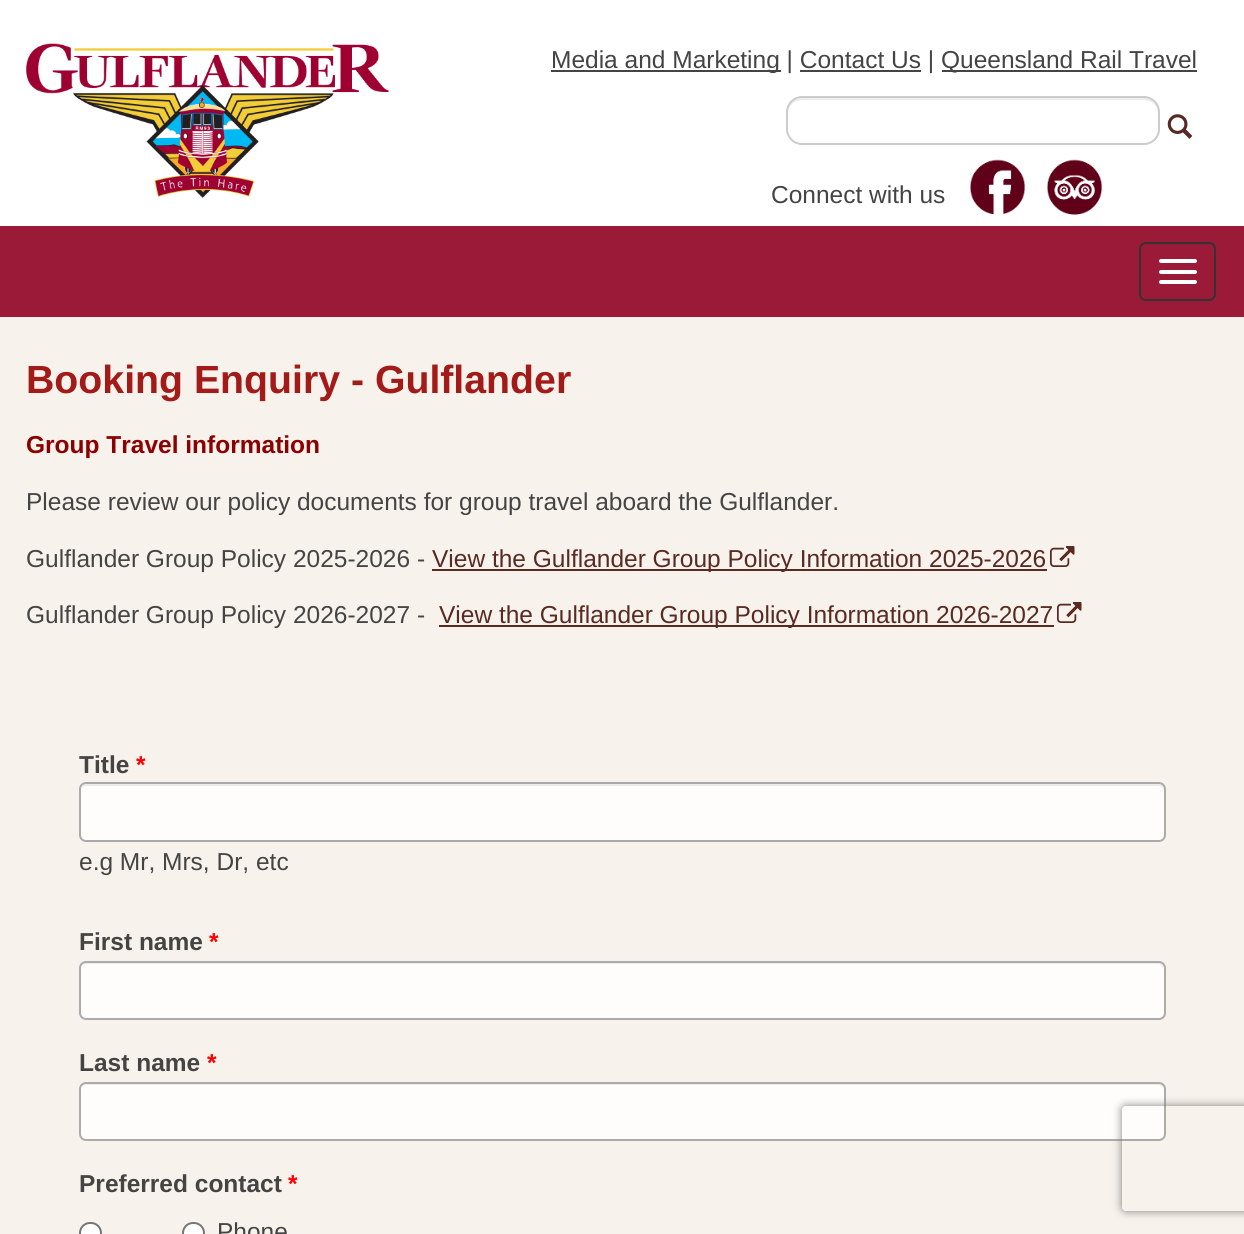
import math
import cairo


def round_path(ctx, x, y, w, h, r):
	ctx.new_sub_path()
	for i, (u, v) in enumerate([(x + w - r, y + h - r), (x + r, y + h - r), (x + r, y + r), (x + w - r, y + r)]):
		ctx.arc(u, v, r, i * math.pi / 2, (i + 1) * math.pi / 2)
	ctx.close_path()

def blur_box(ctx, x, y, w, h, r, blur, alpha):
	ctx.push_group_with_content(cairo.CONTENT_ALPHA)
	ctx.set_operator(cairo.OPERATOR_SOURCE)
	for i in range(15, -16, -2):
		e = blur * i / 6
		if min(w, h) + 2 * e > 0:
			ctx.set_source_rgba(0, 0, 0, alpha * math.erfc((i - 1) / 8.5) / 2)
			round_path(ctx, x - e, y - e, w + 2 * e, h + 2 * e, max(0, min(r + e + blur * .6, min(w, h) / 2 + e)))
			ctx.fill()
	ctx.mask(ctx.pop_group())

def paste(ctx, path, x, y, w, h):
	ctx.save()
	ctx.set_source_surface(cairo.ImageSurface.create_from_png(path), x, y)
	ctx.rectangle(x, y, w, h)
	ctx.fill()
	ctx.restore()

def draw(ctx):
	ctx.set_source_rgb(1, 1, 1)
	ctx.paint()
	paste(ctx, 'media/1.png', 26, 43, 363, 155)
	ctx.set_source_rgb(0.267, 0.267, 0.267)
	ctx.rectangle(551, 70, 230, 2)
	ctx.fill()
	ctx.select_font_face('Liberation Sans')
	ctx.set_font_size(24.5)
	ctx.move_to(551, 68)
	ctx.show_text('Media and Marketing | Contact Us |')
	ctx.rectangle(942, 70, 255, 2)
	ctx.fill()
	ctx.move_to(941, 68)
	ctx.show_text('Queensland Rail Travel')
	ctx.rectangle(800, 70, 121, 2)
	ctx.fill()
	ctx.set_source_rgb(0.925, 0.925, 0.925)
	ctx.new_path()
	ctx.move_to(802, 100)
	ctx.line_to(1144, 100)
	ctx.curve_to(1152, 100, 1158, 106, 1158, 114)
	ctx.line_to(1158, 131)
	ctx.curve_to(1158, 134, 1157, 137, 1155, 139)
	ctx.curve_to(1158, 137, 1159, 134, 1159, 130)
	ctx.line_to(1159, 112)
	ctx.curve_to(1159, 104, 1153, 98, 1145, 98)
	ctx.line_to(802, 98)
	ctx.curve_to(794, 98, 788, 104, 788, 112)
	ctx.line_to(788, 114)
	ctx.curve_to(788, 106, 794, 100, 802, 100)
	ctx.close_path()
	ctx.fill()
	round_path(ctx, 787, 97, 372, 47, 15)
	ctx.set_source_rgb(0.8, 0.8, 0.8)
	ctx.stroke()
	paste(ctx, 'media/2.png', 1167, 114, 26, 25)
	ctx.set_source_rgb(0.267, 0.267, 0.267)
	ctx.move_to(771, 203)
	ctx.show_text('Connect with us')
	paste(ctx, 'media/3.png', 970, 159, 56, 56)
	paste(ctx, 'media/4.png', 1047, 159, 56, 56)
	ctx.set_source_rgb(0.608, 0.102, 0.216)
	ctx.rectangle(0, 226, 1244, 91)
	ctx.fill()
	round_path(ctx, 1140, 243, 75, 57, 6)
	ctx.set_source_rgb(0.2, 0.2, 0.2)
	ctx.stroke()
	ctx.set_source_rgb(1, 1, 1)
	round_path(ctx, 1159, 259, 38, 4, 2)
	ctx.fill()
	round_path(ctx, 1159, 270, 38, 4, 2)
	ctx.fill()
	round_path(ctx, 1159, 280, 38, 4, 2)
	ctx.fill()
	ctx.set_source_rgb(0.965, 0.949, 0.922)
	ctx.rectangle(0, 317, 1244, 917)
	ctx.fill()
	ctx.select_font_face('Liberation Sans', cairo.FONT_SLANT_NORMAL, cairo.FONT_WEIGHT_BOLD)
	ctx.set_font_size(39.25)
	ctx.set_source_rgb(0.635, 0.106, 0.094)
	ctx.move_to(26, 393)
	ctx.show_text('Booking Enquiry - Gulflander')
	ctx.set_font_size(24.5)
	ctx.set_source_rgb(0.545, 0, 0)
	ctx.move_to(26, 453)
	ctx.show_text('Group Travel information')
	ctx.select_font_face('Liberation Sans')
	ctx.set_source_rgb(0.267, 0.267, 0.267)
	ctx.move_to(26, 510)
	ctx.show_text('Please review our policy documents for group travel aboard the Gulflander.')
	ctx.move_to(26, 567)
	ctx.show_text('Gulflander Group Policy 2025-2026 -')
	ctx.set_source_rgb(0.349, 0.165, 0.133)
	ctx.rectangle(432, 569, 615, 2)
	ctx.fill()
	ctx.move_to(432, 567)
	ctx.show_text('View the Gulflander Group Policy Information 2025-2026')
	paste(ctx, 'media/5.png', 1050, 546, 25, 21)
	ctx.set_source_rgb(0.267, 0.267, 0.267)
	ctx.move_to(26, 623)
	ctx.show_text('Gulflander Group Policy 2026-2027 -')
	ctx.set_source_rgb(0.349, 0.165, 0.133)
	ctx.rectangle(439, 625, 615, 2)
	ctx.fill()
	ctx.move_to(439, 623)
	ctx.show_text('View the Gulflander Group Policy Information 2026-2027')
	paste(ctx, 'media/5.png', 1057, 602, 25, 21)
	ctx.select_font_face('Liberation Sans', cairo.FONT_SLANT_NORMAL, cairo.FONT_WEIGHT_BOLD)
	ctx.set_source_rgb(0.267, 0.267, 0.267)
	ctx.move_to(79, 773)
	ctx.show_text('Title')
	ctx.set_source_rgb(1, 0, 0)
	ctx.move_to(136, 773)
	ctx.show_text('*')
	ctx.set_source_rgb(0.996, 0.992, 0.988)
	round_path(ctx, 79, 782, 1087, 60, 7)
	ctx.fill()
	ctx.set_source_rgb(0.922, 0.918, 0.914)
	ctx.new_path()
	ctx.move_to(86, 786)
	ctx.line_to(1158, 786)
	ctx.curve_to(1161, 786, 1164, 788, 1164, 791)
	ctx.line_to(1164, 789)
	ctx.curve_to(1164, 786, 1162, 784, 1159, 784)
	ctx.line_to(86, 784)
	ctx.curve_to(84, 784, 81, 786, 81, 788)
	ctx.curve_to(82, 787, 84, 786, 86, 786)
	ctx.close_path()
	ctx.fill()
	round_path(ctx, 80, 783, 1085, 58, 6)
	ctx.set_source_rgb(0.671, 0.671, 0.671)
	ctx.stroke()
	ctx.select_font_face('Liberation Sans')
	ctx.set_source_rgb(0.267, 0.267, 0.267)
	ctx.move_to(79, 870)
	ctx.show_text('e.g Mr, Mrs, Dr, etc')
	ctx.select_font_face('Liberation Sans', cairo.FONT_SLANT_NORMAL, cairo.FONT_WEIGHT_BOLD)
	ctx.move_to(79, 950)
	ctx.show_text('First name')
	ctx.set_source_rgb(1, 0, 0)
	ctx.move_to(209, 950)
	ctx.show_text('*')
	ctx.set_source_rgb(0.996, 0.992, 0.988)
	round_path(ctx, 79, 961, 1087, 59, 7)
	ctx.fill()
	ctx.set_source_rgb(0.922, 0.918, 0.914)
	ctx.new_path()
	ctx.move_to(86, 964)
	ctx.line_to(1158, 964)
	ctx.curve_to(1161, 964, 1164, 967, 1164, 970)
	ctx.line_to(1164, 968)
	ctx.curve_to(1164, 965, 1162, 963, 1159, 963)
	ctx.line_to(86, 963)
	ctx.curve_to(84, 963, 82, 965, 81, 967)
	ctx.curve_to(82, 965, 84, 964, 86, 964)
	ctx.close_path()
	ctx.fill()
	round_path(ctx, 80, 962, 1085, 57, 6)
	ctx.set_source_rgb(0.671, 0.671, 0.671)
	ctx.stroke()
	ctx.set_source_rgb(0.267, 0.267, 0.267)
	ctx.move_to(79, 1071)
	ctx.show_text('Last name')
	ctx.set_source_rgb(1, 0, 0)
	ctx.move_to(207, 1071)
	ctx.show_text('*')
	ctx.set_source_rgb(0.996, 0.992, 0.988)
	round_path(ctx, 79, 1082, 1087, 59, 7)
	ctx.fill()
	ctx.set_source_rgb(0.922, 0.918, 0.914)
	ctx.new_path()
	ctx.move_to(86, 1085)
	ctx.line_to(1158, 1085)
	ctx.curve_to(1161, 1085, 1164, 1087, 1164, 1090)
	ctx.line_to(1164, 1088)
	ctx.curve_to(1164, 1085, 1162, 1083, 1159, 1083)
	ctx.line_to(86, 1083)
	ctx.curve_to(84, 1083, 81, 1085, 81, 1087)
	ctx.curve_to(82, 1086, 84, 1085, 86, 1085)
	ctx.close_path()
	ctx.fill()
	round_path(ctx, 80, 1083, 1085, 57, 6)
	ctx.set_source_rgb(0.671, 0.671, 0.671)
	ctx.stroke()
	ctx.set_source_rgb(0.267, 0.267, 0.267)
	ctx.move_to(79, 1192)
	ctx.show_text('Preferred contact')
	ctx.set_source_rgb(1, 0, 0)
	ctx.move_to(288, 1192)
	ctx.show_text('*')
	ctx.set_source_rgb(1, 1, 1)
	round_path(ctx, 80, 1223, 21, 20, 10)
	ctx.fill_preserve()
	ctx.set_source_rgb(0.463, 0.463, 0.463)
	ctx.stroke()
	ctx.set_source_rgb(1, 1, 1)
	round_path(ctx, 183, 1223, 21, 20, 10)
	ctx.fill_preserve()
	ctx.set_source_rgb(0.463, 0.463, 0.463)
	ctx.stroke()
	ctx.select_font_face('Liberation Sans')
	ctx.set_source_rgb(0.267, 0.267, 0.267)
	ctx.move_to(217, 1240)
	ctx.show_text('Phone')
	ctx.save()
	ctx.set_fill_rule(cairo.FILL_RULE_EVEN_ODD)
	ctx.new_path()
	ctx.move_to(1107, 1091)
	ctx.line_to(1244, 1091)
	ctx.line_to(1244, 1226)
	ctx.line_to(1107, 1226)
	ctx.close_path()
	ctx.move_to(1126, 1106)
	ctx.line_to(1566, 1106)
	ctx.curve_to(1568, 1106, 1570, 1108, 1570, 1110)
	ctx.line_to(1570, 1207)
	ctx.curve_to(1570, 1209, 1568, 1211, 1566, 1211)
	ctx.line_to(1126, 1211)
	ctx.curve_to(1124, 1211, 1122, 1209, 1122, 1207)
	ctx.line_to(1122, 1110)
	ctx.curve_to(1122, 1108, 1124, 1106, 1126, 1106)
	ctx.close_path()
	ctx.clip()
	ctx.set_source_rgb(0.502, 0.502, 0.502)
	blur_box(ctx, 1122, 1106, 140, 105, 4, 4.5, 1)
	ctx.restore()


surface = cairo.ImageSurface(cairo.FORMAT_RGB24, 1244, 1234)
ctx = cairo.Context(surface)
options = cairo.FontOptions()
options.set_hint_metrics(cairo.HINT_METRICS_OFF)
options.set_hint_style(cairo.HINT_STYLE_NONE)
ctx.set_font_options(options)
ctx.set_miter_limit(4)
draw(ctx)
surface.write_to_png('image.png')
